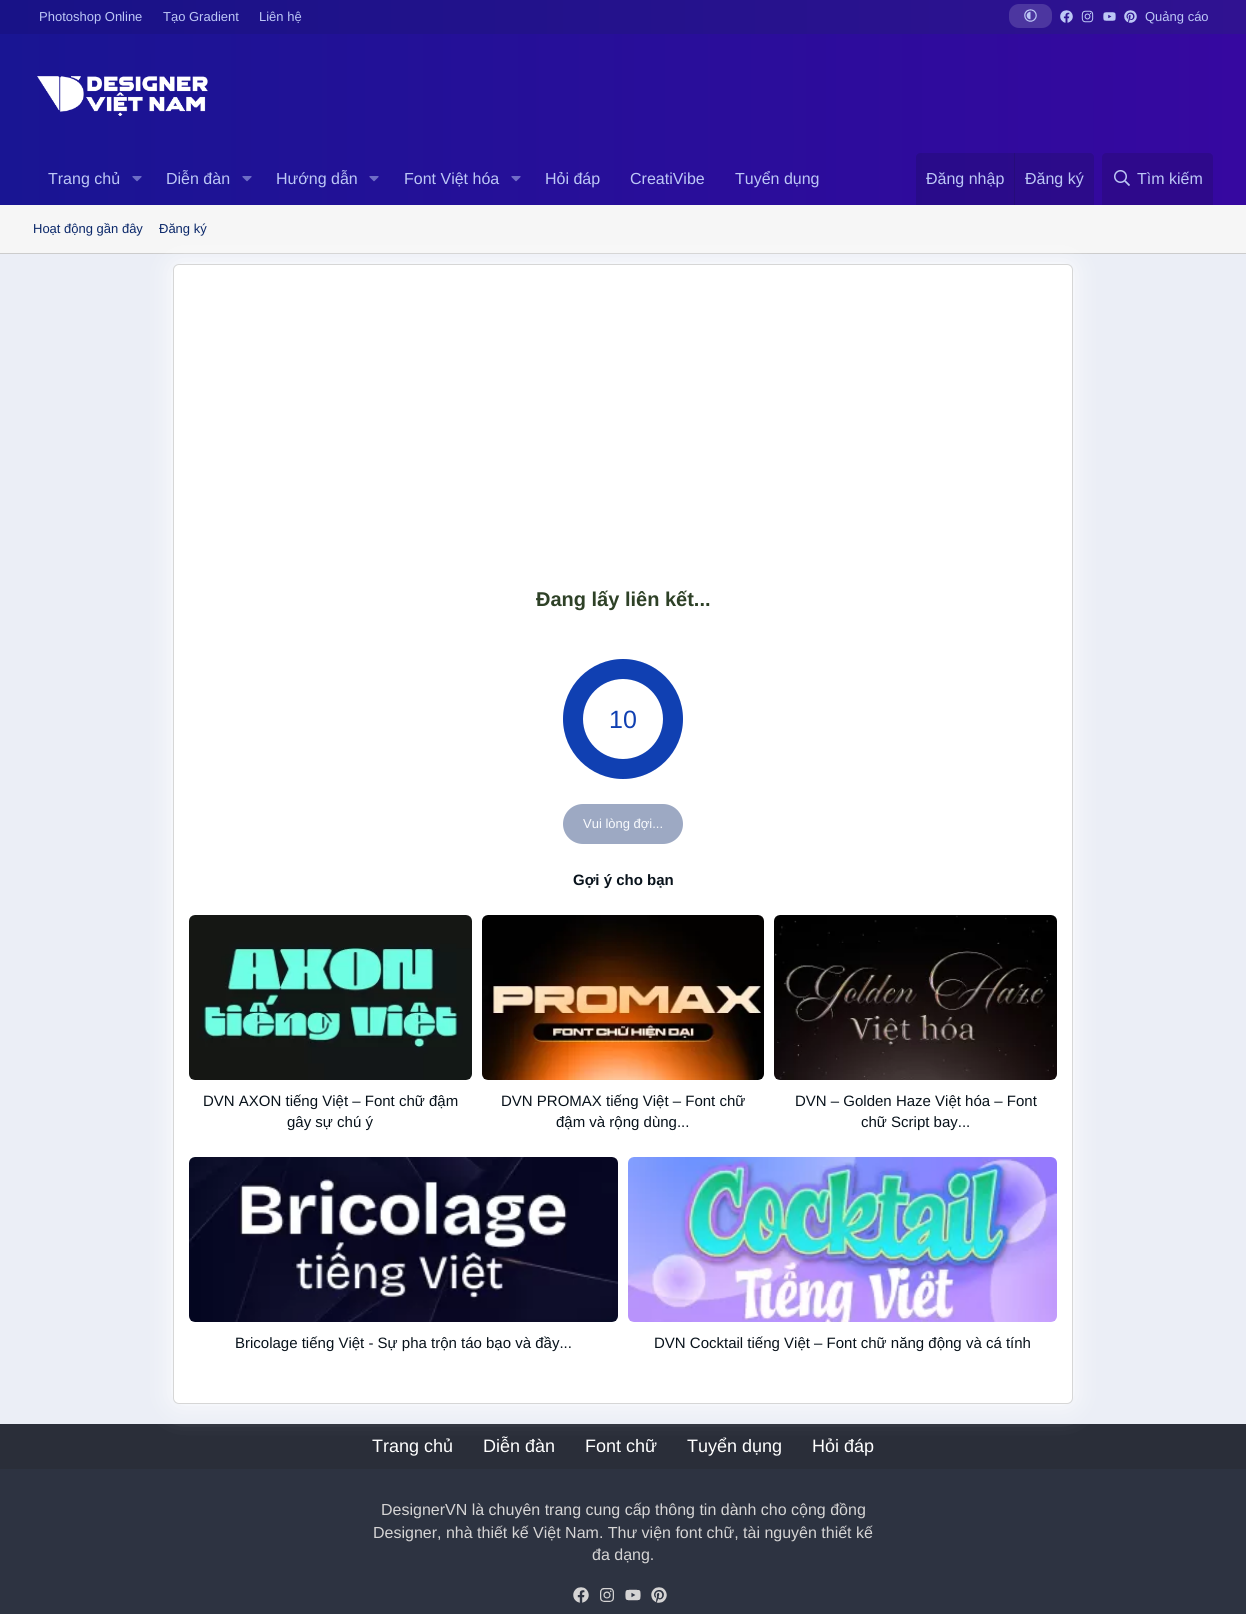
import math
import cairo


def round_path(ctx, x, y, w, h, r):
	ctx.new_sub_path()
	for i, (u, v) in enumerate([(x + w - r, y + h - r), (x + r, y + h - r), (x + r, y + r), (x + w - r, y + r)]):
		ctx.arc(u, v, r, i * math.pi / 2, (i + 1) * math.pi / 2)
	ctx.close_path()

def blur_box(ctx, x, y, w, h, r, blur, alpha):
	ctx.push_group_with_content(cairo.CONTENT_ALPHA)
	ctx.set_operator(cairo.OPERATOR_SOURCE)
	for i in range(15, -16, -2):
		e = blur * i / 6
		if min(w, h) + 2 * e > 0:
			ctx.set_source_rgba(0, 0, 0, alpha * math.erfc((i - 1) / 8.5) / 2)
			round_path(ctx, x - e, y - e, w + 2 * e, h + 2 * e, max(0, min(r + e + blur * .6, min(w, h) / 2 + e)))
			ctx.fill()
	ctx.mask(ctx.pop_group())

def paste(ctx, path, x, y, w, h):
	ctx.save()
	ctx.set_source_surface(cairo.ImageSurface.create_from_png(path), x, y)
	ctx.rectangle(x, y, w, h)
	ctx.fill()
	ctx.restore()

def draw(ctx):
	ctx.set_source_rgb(0.918, 0.933, 0.961)
	ctx.paint()
	gradient = cairo.LinearGradient(0, 77, 1246, 76)
	gradient.add_color_stop_rgba(0, 0.094, 0.071, 0.529, 1)
	gradient.add_color_stop_rgba(1, 0.188, 0.071, 0.569, 1)
	ctx.set_source(gradient)
	ctx.rectangle(0, 0, 1246, 34)
	ctx.fill()
	ctx.select_font_face('Liberation Sans')
	ctx.set_font_size(13)
	ctx.set_source_rgb(0.737, 0.78, 0.961)
	for x, y, s in [
		(39, 21, 'Photoshop Online'),
		(163, 21, 'Tạo Gradient'),
		(259, 21, 'Liên hệ'),
	]:
		ctx.move_to(x, y)
		ctx.show_text(s)
	ctx.set_source_rgb(0.298, 0.212, 0.627)
	round_path(ctx, 1009, 4, 43, 24, 10)
	ctx.fill()
	paste(ctx, 'media/1.png', 1024, 9, 13, 13)
	paste(ctx, 'media/2.png', 1060, 10, 13, 13)
	paste(ctx, 'media/3.png', 1081, 10, 13, 13)
	paste(ctx, 'media/4.png', 1103, 12, 13, 9)
	paste(ctx, 'media/5.png', 1124, 10, 13, 13)
	ctx.set_source_rgb(0.737, 0.78, 0.961)
	ctx.move_to(1145, 21)
	ctx.show_text('Quảng cáo')
	gradient = cairo.LinearGradient(0, 94, 1246, 93)
	gradient.add_color_stop_rgba(0, 0.098, 0.082, 0.576, 1)
	gradient.add_color_stop_rgba(1, 0.212, 0.031, 0.627, 1)
	ctx.set_source(gradient)
	ctx.rectangle(0, 34, 1246, 119)
	ctx.fill()
	paste(ctx, 'media/6.png', 37, 76, 171, 40)
	gradient = cairo.LinearGradient(0, 179, 1246, 179)
	gradient.add_color_stop_rgba(0, 0.098, 0.082, 0.576, 1)
	gradient.add_color_stop_rgba(1, 0.212, 0.031, 0.627, 1)
	ctx.set_source(gradient)
	ctx.rectangle(0, 153, 1246, 52)
	ctx.fill()
	ctx.set_font_size(16)
	ctx.set_source_rgb(0.737, 0.78, 0.961)
	ctx.move_to(48, 184)
	ctx.show_text('Trang chủ')
	paste(ctx, 'media/7.png', 132, 176, 10, 6)
	ctx.move_to(166, 184)
	ctx.show_text('Diễn đàn')
	paste(ctx, 'media/8.png', 242, 176, 10, 6)
	ctx.move_to(276, 184)
	ctx.show_text('Hướng dẫn')
	paste(ctx, 'media/9.png', 369, 176, 10, 6)
	ctx.move_to(404, 184)
	ctx.show_text('Font Việt hóa')
	paste(ctx, 'media/10.png', 511, 176, 10, 6)
	for x, y, s in [
		(545, 184, 'Hỏi đáp'),
		(630, 184, 'CreatiVibe'),
		(735, 184, 'Tuyển dụng'),
	]:
		ctx.move_to(x, y)
		ctx.show_text(s)
	ctx.set_source_rgba(0.035, 0.071, 0.106, 0.15)
	ctx.new_path()
	ctx.move_to(920, 153)
	ctx.line_to(1090, 153)
	ctx.curve_to(1092, 153, 1094, 155, 1094, 157)
	ctx.line_to(1094, 205)
	ctx.line_to(916, 205)
	ctx.line_to(916, 157)
	ctx.curve_to(916, 155, 918, 153, 920, 153)
	ctx.close_path()
	ctx.fill()
	ctx.set_source_rgb(0.737, 0.78, 0.961)
	ctx.move_to(926, 184)
	ctx.show_text('Đăng nhập')
	ctx.set_source_rgb(0.149, 0.047, 0.478)
	ctx.rectangle(1014, 153, 1, 52)
	ctx.fill()
	ctx.set_source_rgb(0.737, 0.78, 0.961)
	ctx.move_to(1025, 184)
	ctx.show_text('Đăng ký')
	ctx.set_source_rgb(0.18, 0.039, 0.545)
	ctx.new_path()
	ctx.move_to(1106, 153)
	ctx.line_to(1209, 153)
	ctx.curve_to(1211, 153, 1213, 155, 1213, 157)
	ctx.line_to(1213, 205)
	ctx.line_to(1102, 205)
	ctx.line_to(1102, 157)
	ctx.curve_to(1102, 155, 1104, 153, 1106, 153)
	ctx.close_path()
	ctx.fill()
	paste(ctx, 'media/11.png', 1114, 170, 16, 16)
	ctx.set_source_rgb(0.737, 0.78, 0.961)
	ctx.move_to(1137, 184)
	ctx.show_text('Tìm kiếm')
	ctx.set_source_rgb(0.961, 0.961, 0.961)
	ctx.rectangle(0, 205, 1246, 48)
	ctx.fill()
	ctx.set_source_rgb(0.8, 0.8, 0.8)
	ctx.rectangle(0, 253, 1246, 1)
	ctx.fill()
	ctx.set_source_rgb(0.165, 0.18, 0.224)
	ctx.rectangle(0, 1424, 1246, 45)
	ctx.fill()
	ctx.set_source_rgb(1, 1, 1)
	blur_box(ctx, 173, 264, 900, 1140, 6, 12.5, 1)
	ctx.set_font_size(13)
	ctx.set_source_rgb(0.043, 0.157, 0.416)
	ctx.move_to(33, 233)
	ctx.show_text('Hoạt động gần đây')
	ctx.move_to(159, 233)
	ctx.show_text('Đăng ký')
	ctx.set_source_rgb(1, 1, 1)
	round_path(ctx, 173.5, 264.5, 899, 1139, 5.5)
	ctx.fill_preserve()
	ctx.set_source_rgb(0.839, 0.839, 0.839)
	ctx.set_line_width(1)
	ctx.stroke()
	ctx.select_font_face('Liberation Sans', cairo.FONT_SLANT_NORMAL, cairo.FONT_WEIGHT_BOLD)
	ctx.set_font_size(20)
	ctx.set_source_rgb(0.18, 0.255, 0.153)
	ctx.move_to(536, 606)
	ctx.show_text('Đang lấy liên kết...')
	ctx.new_path()
	ctx.arc(623, 719, 50, 0, 2 * math.pi)
	ctx.set_source_rgb(0.918, 0.933, 0.961)
	ctx.set_line_width(20)
	ctx.stroke()
	ctx.set_source_rgb(0.063, 0.251, 0.698)
	ctx.set_fill_rule(cairo.FILL_RULE_EVEN_ODD)
	ctx.new_path()
	ctx.move_to(623, 659)
	ctx.line_to(623, 779)
	ctx.curve_to(590, 779, 563, 752, 563, 719)
	ctx.curve_to(563, 686, 590, 659, 623, 659)
	ctx.close_path()
	ctx.move_to(623, 679)
	ctx.line_to(623, 759)
	ctx.curve_to(601, 759, 583, 741, 583, 719)
	ctx.curve_to(583, 697, 601, 679, 623, 679)
	ctx.close_path()
	ctx.fill()
	ctx.new_path()
	ctx.move_to(623, 659)
	ctx.curve_to(656, 659, 683, 686, 683, 719)
	ctx.curve_to(683, 752, 656, 779, 623, 779)
	ctx.close_path()
	ctx.move_to(623, 679)
	ctx.curve_to(645, 679, 663, 697, 663, 719)
	ctx.curve_to(663, 741, 645, 759, 623, 759)
	ctx.close_path()
	ctx.fill()
	ctx.select_font_face('Liberation Sans')
	ctx.set_font_size(25)
	ctx.move_to(609, 728)
	ctx.show_text('10')
	ctx.set_source_rgb(0.616, 0.663, 0.765)
	round_path(ctx, 563, 804, 120, 40, 20)
	ctx.fill()
	ctx.set_font_size(13)
	ctx.set_source_rgb(0.973, 0.984, 0.996)
	ctx.move_to(583, 828)
	ctx.show_text('Vui lòng đợi...')
	ctx.select_font_face('Liberation Sans', cairo.FONT_SLANT_NORMAL, cairo.FONT_WEIGHT_BOLD)
	ctx.set_font_size(15)
	ctx.set_source_rgb(0.035, 0.071, 0.106)
	ctx.move_to(573, 885)
	ctx.show_text('Gợi ý cho bạn')
	paste(ctx, 'media/12.png', 189, 915, 283, 165)
	ctx.select_font_face('Liberation Sans')
	ctx.move_to(203, 1106)
	ctx.show_text('DVN AXON tiếng Việt – Font chữ đậm')
	ctx.move_to(287, 1127)
	ctx.show_text('gây sự chú ý')
	paste(ctx, 'media/13.png', 482, 915, 282, 165)
	ctx.move_to(501, 1106)
	ctx.show_text('DVN PROMAX tiếng Việt – Font chữ')
	ctx.move_to(556, 1127)
	ctx.show_text('đậm và rộng dùng...')
	paste(ctx, 'media/14.png', 774, 915, 283, 165)
	ctx.move_to(795, 1106)
	ctx.show_text('DVN – Golden Haze Việt hóa – Font')
	ctx.move_to(861, 1127)
	ctx.show_text('chữ Script bay...')
	paste(ctx, 'media/15.png', 189, 1157, 429, 165)
	ctx.move_to(235, 1348)
	ctx.show_text('Bricolage tiếng Việt - Sự pha trộn táo bạo và đầy...')
	paste(ctx, 'media/16.png', 628, 1157, 429, 165)
	ctx.move_to(654, 1348)
	ctx.show_text('DVN Cocktail tiếng Việt – Font chữ năng động và cá tính')
	ctx.set_font_size(18)
	ctx.set_source_rgb(1, 1, 1)
	for x, y, s in [
		(372, 1452, 'Trang chủ'),
		(483, 1452, 'Diễn đàn'),
		(585, 1452, 'Font chữ'),
		(687, 1452, 'Tuyển dụng'),
		(812, 1452, 'Hỏi đáp'),
	]:
		ctx.move_to(x, y)
		ctx.show_text(s)
	ctx.set_source_rgb(0.176, 0.2, 0.255)
	ctx.rectangle(0, 1469, 1246, 145)
	ctx.fill()
	ctx.set_font_size(16)
	ctx.set_source_rgb(0.835, 0.831, 0.831)
	for x, y, s in [
		(381, 1515, 'DesignerVN là chuyên trang cung cấp thông tin dành cho cộng đồng'),
		(373, 1538, 'Designer, nhà thiết kế Việt Nam. Thư viện font chữ, tài nguyên thiết kế'),
		(592, 1560, 'đa dạng.'),
	]:
		ctx.move_to(x, y)
		ctx.show_text(s)
	paste(ctx, 'media/17.png', 573, 1587, 16, 16)
	paste(ctx, 'media/18.png', 600, 1588, 14, 14)
	paste(ctx, 'media/19.png', 625, 1589, 16, 12)
	paste(ctx, 'media/20.png', 651, 1587, 16, 16)


surface = cairo.ImageSurface(cairo.FORMAT_RGB24, 1246, 1614)
ctx = cairo.Context(surface)
options = cairo.FontOptions()
options.set_hint_metrics(cairo.HINT_METRICS_OFF)
options.set_hint_style(cairo.HINT_STYLE_NONE)
ctx.set_font_options(options)
ctx.set_miter_limit(4)
draw(ctx)
surface.write_to_png('image.png')
